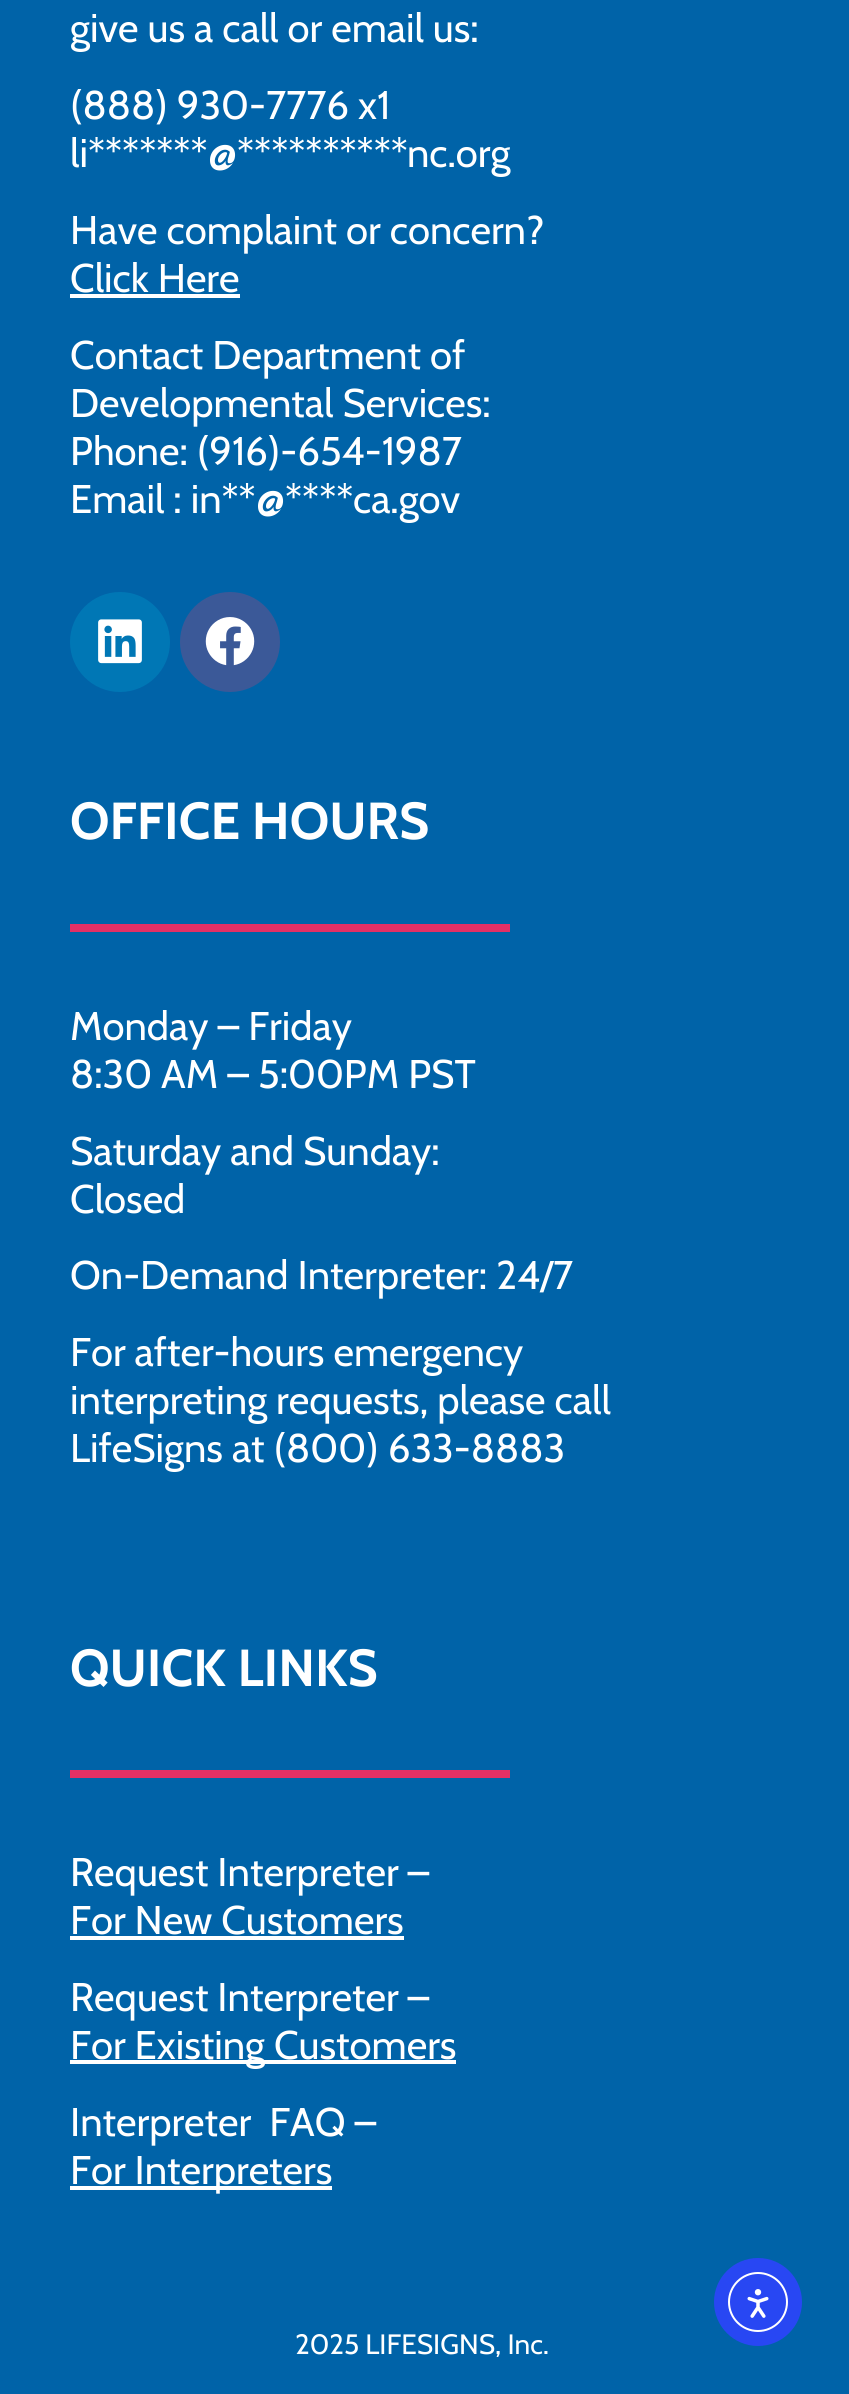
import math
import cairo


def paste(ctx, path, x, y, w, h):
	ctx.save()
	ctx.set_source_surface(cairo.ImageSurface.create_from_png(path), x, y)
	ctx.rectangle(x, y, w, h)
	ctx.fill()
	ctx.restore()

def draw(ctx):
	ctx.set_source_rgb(0, 0.388, 0.659)
	ctx.paint()
	ctx.select_font_face('Cabin')
	ctx.set_font_size(40)
	ctx.set_source_rgb(1, 1, 1)
	for x, y, s in [
		(70, 42, 'give us a call or email us:'),
		(70, 119, '(888) 930-7776 x1'),
		(70, 167, 'li*******'),
		(208, 167, '@**********'),
		(407, 167, 'nc.org'),
		(70, 244, 'Have complaint or concern?'),
		(70, 292, 'Click Here'),
	]:
		ctx.move_to(x, y)
		ctx.show_text(s)
	ctx.rectangle(70, 294, 170, 4)
	ctx.fill()
	for x, y, s in [
		(70, 369, 'Contact Department of'),
		(70, 417, 'Developmental Services:'),
		(70, 465, 'Phone: (916)-654-1987'),
		(70, 513, 'Email : in**'),
		(256, 513, '@****'),
		(353, 513, 'ca.gov'),
	]:
		ctx.move_to(x, y)
		ctx.show_text(s)
	ctx.set_source_rgb(0, 0.467, 0.71)
	ctx.new_path()
	ctx.arc(120, 642, 50, 0, 2 * math.pi)
	ctx.fill()
	paste(ctx, 'media/1.png', 98, 619, 44, 45)
	ctx.set_source_rgb(0.231, 0.349, 0.596)
	ctx.arc(230, 642, 50, 0, 2 * math.pi)
	ctx.fill()
	paste(ctx, 'media/2.png', 205, 617, 50, 49)
	ctx.select_font_face('Cabin', cairo.FONT_SLANT_NORMAL, cairo.FONT_WEIGHT_BOLD)
	ctx.set_font_size(52)
	ctx.set_source_rgb(1, 1, 1)
	ctx.move_to(70, 839)
	ctx.show_text('OFFICE HOURS')
	ctx.set_source_rgb(0.89, 0.188, 0.396)
	ctx.rectangle(70, 924, 440, 8)
	ctx.fill()
	ctx.select_font_face('Cabin')
	ctx.set_font_size(40)
	ctx.set_source_rgb(1, 1, 1)
	for x, y, s in [
		(70, 1040, 'Monday – Friday'),
		(70, 1088, '8:30 AM – 5:00PM PST'),
		(70, 1165, 'Saturday and Sunday:'),
		(70, 1213, 'Closed'),
		(70, 1289, 'On-Demand Interpreter: 24/7'),
		(70, 1366, 'For after-hours emergency'),
		(70, 1414, 'interpreting requests, please call'),
		(70, 1462, 'LifeSigns at (800) 633-8883'),
	]:
		ctx.move_to(x, y)
		ctx.show_text(s)
	ctx.select_font_face('Cabin', cairo.FONT_SLANT_NORMAL, cairo.FONT_WEIGHT_BOLD)
	ctx.set_font_size(52)
	ctx.move_to(70, 1686)
	ctx.show_text('QUICK LINKS')
	ctx.set_source_rgb(0.89, 0.188, 0.396)
	ctx.rectangle(70, 1770, 440, 8)
	ctx.fill()
	ctx.select_font_face('Cabin')
	ctx.set_font_size(40)
	ctx.set_source_rgb(1, 1, 1)
	ctx.move_to(70, 1886)
	ctx.show_text('Request Interpreter –')
	ctx.move_to(70, 1934)
	ctx.show_text('For New Customers')
	ctx.rectangle(70, 1936, 334, 4)
	ctx.fill()
	ctx.move_to(70, 2011)
	ctx.show_text('Request Interpreter –')
	ctx.rectangle(70, 2060, 386, 4)
	ctx.fill()
	ctx.move_to(70, 2059)
	ctx.show_text('For Existing Customers')
	ctx.move_to(70, 2136)
	ctx.show_text('Interpreter  FAQ –')
	ctx.rectangle(70, 2186, 262, 4)
	ctx.fill()
	ctx.move_to(70, 2184)
	ctx.show_text('For Interpreters')
	ctx.set_font_size(28)
	ctx.move_to(295, 2354)
	ctx.show_text('2025 LIFESIGNS, Inc.')
	ctx.set_source_rgb(0.157, 0.278, 0.953)
	ctx.new_path()
	ctx.arc(758, 2302, 44, 0, 2 * math.pi)
	ctx.fill()
	ctx.arc(758, 2302, 29, 0, 2 * math.pi)
	ctx.set_source_rgb(1, 1, 1)
	ctx.stroke()
	paste(ctx, 'media/3.png', 747, 2289, 22, 29)


surface = cairo.ImageSurface(cairo.FORMAT_RGB24, 849, 2394)
ctx = cairo.Context(surface)
options = cairo.FontOptions()
options.set_hint_metrics(cairo.HINT_METRICS_OFF)
options.set_hint_style(cairo.HINT_STYLE_NONE)
ctx.set_font_options(options)
ctx.set_miter_limit(4)
draw(ctx)
surface.write_to_png('image.png')
